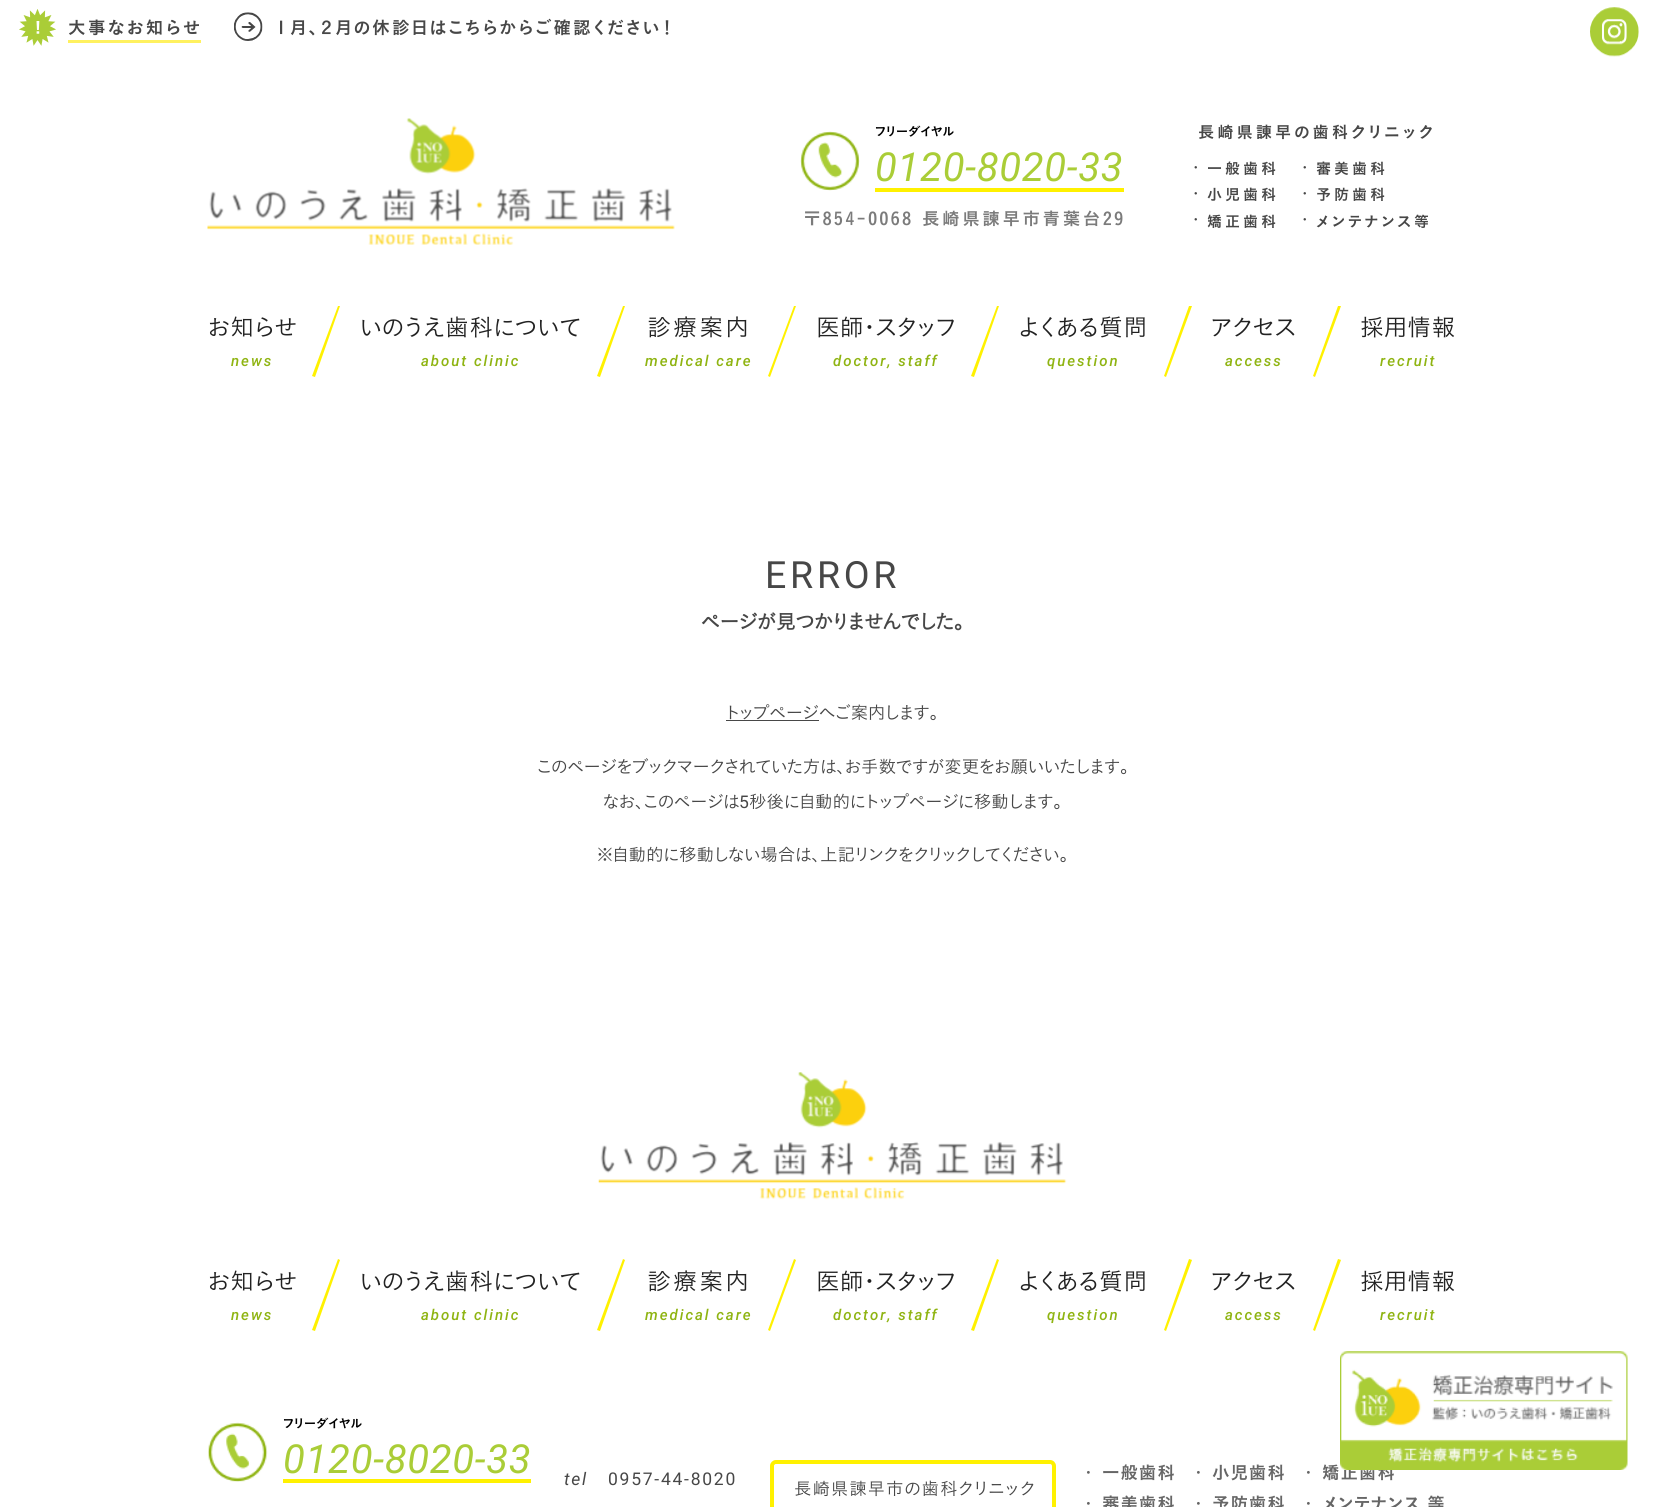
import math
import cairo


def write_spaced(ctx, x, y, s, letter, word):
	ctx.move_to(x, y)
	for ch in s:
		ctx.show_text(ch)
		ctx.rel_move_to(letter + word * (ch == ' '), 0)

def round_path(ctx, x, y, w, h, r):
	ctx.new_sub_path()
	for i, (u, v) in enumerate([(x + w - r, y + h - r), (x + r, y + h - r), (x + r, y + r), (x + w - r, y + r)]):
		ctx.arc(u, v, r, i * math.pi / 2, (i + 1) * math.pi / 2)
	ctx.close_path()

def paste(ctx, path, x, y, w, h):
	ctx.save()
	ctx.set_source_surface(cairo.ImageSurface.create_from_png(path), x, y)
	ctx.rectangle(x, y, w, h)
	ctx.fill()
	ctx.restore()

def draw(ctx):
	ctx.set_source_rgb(1, 1, 1)
	ctx.paint()
	paste(ctx, 'media/1.png', 19, 9, 37, 37)
	paste(ctx, 'media/2.png', 36, 21, 4, 13)
	ctx.select_font_face('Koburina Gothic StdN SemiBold')
	ctx.set_font_size(17.5)
	ctx.set_source_rgb(0.278, 0.278, 0.278)
	write_spaced(ctx, 68, 34, '大事なお知らせ', 2.5, 0)
	ctx.set_source_rgb(1, 0.945, 0.373)
	ctx.rectangle(68, 40, 133, 3)
	ctx.fill()
	paste(ctx, 'media/3.png', 234, 12, 29, 29)
	ctx.set_source_rgb(0.278, 0.278, 0.278)
	write_spaced(ctx, 274, 34, '１月、２月の休診日はこちらからご確認ください！', 2.1, 0)
	paste(ctx, 'media/4.png', 1590, 7, 49, 50)
	paste(ctx, 'media/5.png', 207, 118, 468, 127)
	paste(ctx, 'media/6.png', 800, 131, 60, 60)
	ctx.set_font_size(12.5)
	ctx.set_source_rgb(0, 0, 0)
	ctx.move_to(875, 136)
	ctx.show_text('フリーダイヤル')
	ctx.set_source_rgb(1, 0.945, 0)
	ctx.rectangle(875, 188, 249, 4)
	ctx.fill()
	ctx.select_font_face('Roboto', cairo.FONT_SLANT_ITALIC)
	ctx.set_font_size(40)
	ctx.set_source_rgb(0.667, 0.804, 0.216)
	write_spaced(ctx, 875, 181, '0120-8020-33', 0.75, 0)
	ctx.select_font_face('Koburina Gothic StdN SemiBold')
	ctx.set_font_size(17.5)
	ctx.set_source_rgb(0.482, 0.482, 0.482)
	write_spaced(ctx, 804, 225, '〒854-0068 長崎県諫早市青葉台29', 2.6, 0)
	ctx.set_font_size(16.25)
	ctx.set_source_rgb(0.278, 0.278, 0.278)
	write_spaced(ctx, 1198, 138, '長崎県諌早の歯科クリニック', 3, 0)
	ctx.select_font_face('Koburina Gothic StdN Light')
	ctx.set_font_size(15)
	write_spaced(ctx, 1192, 173, '・', 3, 0)
	ctx.select_font_face('Koburina Gothic StdN SemiBold')
	write_spaced(ctx, 1207, 174, '一般歯科', 3, 0)
	ctx.select_font_face('Koburina Gothic StdN Light')
	write_spaced(ctx, 1192, 199, '・', 3, 0)
	ctx.select_font_face('Koburina Gothic StdN SemiBold')
	write_spaced(ctx, 1207, 200, '小児歯科', 3, 0)
	ctx.select_font_face('Koburina Gothic StdN Light')
	write_spaced(ctx, 1192, 225, '・', 3, 0)
	ctx.select_font_face('Koburina Gothic StdN SemiBold')
	write_spaced(ctx, 1207, 227, '矯正歯科', 3, 0)
	ctx.select_font_face('Koburina Gothic StdN Light')
	write_spaced(ctx, 1301, 173, '・', 3, 0)
	ctx.select_font_face('Koburina Gothic StdN SemiBold')
	write_spaced(ctx, 1316, 174, '審美歯科', 3, 0)
	ctx.select_font_face('Koburina Gothic StdN Light')
	write_spaced(ctx, 1301, 199, '・', 3, 0)
	ctx.select_font_face('Koburina Gothic StdN SemiBold')
	write_spaced(ctx, 1316, 200, '予防歯科', 3, 0)
	ctx.select_font_face('Koburina Gothic StdN Light')
	write_spaced(ctx, 1301, 225, '・', 3, 0)
	ctx.select_font_face('Koburina Gothic StdN SemiBold')
	write_spaced(ctx, 1316, 227, 'メンテナンス等', 3, 0)
	ctx.select_font_face('Koburina Gothic StdN Light')
	ctx.set_font_size(23.75)
	ctx.set_source_rgb(0.133, 0.133, 0.133)
	write_spaced(ctx, 208, 336, 'お知らせ', 0.5, 0)
	ctx.select_font_face('Roboto Medium', cairo.FONT_SLANT_ITALIC)
	ctx.set_font_size(15)
	ctx.set_source_rgb(0.561, 0.706, 0.071)
	write_spaced(ctx, 231, 366, 'news', 2, 0)
	ctx.set_source_rgb(1, 0.945, 0)
	ctx.new_path()
	ctx.move_to(312, 376)
	ctx.line_to(338, 306)
	ctx.line_to(340, 306)
	ctx.line_to(315, 377)
	ctx.close_path()
	ctx.fill()
	ctx.select_font_face('Koburina Gothic StdN Light')
	ctx.set_font_size(23.75)
	ctx.set_source_rgb(0.133, 0.133, 0.133)
	write_spaced(ctx, 360, 336, 'いのうえ歯科について', 0.5, 0)
	ctx.select_font_face('Roboto Medium', cairo.FONT_SLANT_ITALIC)
	ctx.set_font_size(15)
	ctx.set_source_rgb(0.561, 0.706, 0.071)
	write_spaced(ctx, 421, 366, 'about clinic', 2, 0)
	ctx.set_source_rgb(1, 0.945, 0)
	ctx.new_path()
	ctx.move_to(597, 376)
	ctx.line_to(623, 306)
	ctx.line_to(625, 306)
	ctx.line_to(600, 377)
	ctx.close_path()
	ctx.fill()
	ctx.select_font_face('Koburina Gothic StdN Light')
	ctx.set_font_size(23.75)
	ctx.set_source_rgb(0.133, 0.133, 0.133)
	write_spaced(ctx, 647, 336, '診療案内', 2.5, 0)
	ctx.select_font_face('Roboto Medium', cairo.FONT_SLANT_ITALIC)
	ctx.set_font_size(15)
	ctx.set_source_rgb(0.561, 0.706, 0.071)
	write_spaced(ctx, 645, 366, 'medical care', 2, 0)
	ctx.set_source_rgb(1, 0.945, 0)
	ctx.new_path()
	ctx.move_to(768, 376)
	ctx.line_to(794, 306)
	ctx.line_to(796, 306)
	ctx.line_to(770, 377)
	ctx.close_path()
	ctx.fill()
	ctx.select_font_face('Koburina Gothic StdN Light')
	ctx.set_font_size(23.75)
	ctx.set_source_rgb(0.133, 0.133, 0.133)
	ctx.move_to(816, 336)
	ctx.show_text('医師・スタッフ')
	ctx.select_font_face('Roboto Medium', cairo.FONT_SLANT_ITALIC)
	ctx.set_font_size(15)
	ctx.set_source_rgb(0.561, 0.706, 0.071)
	write_spaced(ctx, 833, 366, 'doctor, staff', 2, 0)
	ctx.set_source_rgb(1, 0.945, 0)
	ctx.new_path()
	ctx.move_to(971, 376)
	ctx.line_to(997, 306)
	ctx.line_to(999, 306)
	ctx.line_to(974, 377)
	ctx.close_path()
	ctx.fill()
	ctx.select_font_face('Koburina Gothic StdN Light')
	ctx.set_font_size(23.75)
	ctx.set_source_rgb(0.133, 0.133, 0.133)
	write_spaced(ctx, 1019, 336, 'よくある質問', 0.5, 0)
	ctx.select_font_face('Roboto Medium', cairo.FONT_SLANT_ITALIC)
	ctx.set_font_size(15)
	ctx.set_source_rgb(0.561, 0.706, 0.071)
	write_spaced(ctx, 1047, 366, 'question', 2, 0)
	ctx.set_source_rgb(1, 0.945, 0)
	ctx.new_path()
	ctx.move_to(1164, 376)
	ctx.line_to(1189, 306)
	ctx.line_to(1192, 306)
	ctx.line_to(1166, 377)
	ctx.close_path()
	ctx.fill()
	ctx.select_font_face('Koburina Gothic StdN Light')
	ctx.set_font_size(23.75)
	ctx.set_source_rgb(0.133, 0.133, 0.133)
	write_spaced(ctx, 1211, 336, 'アクセス', 0.5, 0)
	ctx.select_font_face('Roboto Medium', cairo.FONT_SLANT_ITALIC)
	ctx.set_font_size(15)
	ctx.set_source_rgb(0.561, 0.706, 0.071)
	write_spaced(ctx, 1225, 366, 'access', 2, 0)
	ctx.set_source_rgb(1, 0.945, 0)
	ctx.new_path()
	ctx.move_to(1313, 376)
	ctx.line_to(1338, 306)
	ctx.line_to(1341, 306)
	ctx.line_to(1315, 377)
	ctx.close_path()
	ctx.fill()
	ctx.select_font_face('Koburina Gothic StdN Light')
	ctx.set_font_size(23.75)
	ctx.set_source_rgb(0.133, 0.133, 0.133)
	write_spaced(ctx, 1360, 336, '採用情報', 0.5, 0)
	ctx.select_font_face('Roboto Medium', cairo.FONT_SLANT_ITALIC)
	ctx.set_font_size(15)
	ctx.set_source_rgb(0.561, 0.706, 0.071)
	write_spaced(ctx, 1380, 366, 'recruit', 2, 0)
	ctx.select_font_face('Roboto')
	ctx.set_font_size(37.5)
	ctx.set_source_rgb(0.278, 0.278, 0.278)
	write_spaced(ctx, 765, 588, 'ERROR', 3.75, 0)
	ctx.select_font_face('Koburina Gothic StdN', cairo.FONT_SLANT_NORMAL, cairo.FONT_WEIGHT_BOLD)
	ctx.set_font_size(20)
	ctx.move_to(701, 629)
	ctx.show_text('ページが見つかりませんでした。')
	ctx.rectangle(726, 720, 93, 1)
	ctx.fill()
	ctx.select_font_face('Koburina Gothic StdN Light')
	ctx.set_font_size(17.5)
	for x, y, s in [
		(726, 719, 'トップページへご案内します。'),
		(537, 773, 'このページをブックマークされていた方は、お手数ですが変更をお願いいたします。'),
		(603, 808, 'なお、このページは'),
	]:
		ctx.move_to(x, y)
		ctx.show_text(s)
	ctx.select_font_face('Roboto')
	ctx.move_to(739, 808)
	ctx.show_text('5')
	ctx.select_font_face('Koburina Gothic StdN Light')
	ctx.move_to(749, 808)
	ctx.show_text('秒後に自動的にトップページに移動します。')
	ctx.move_to(597, 861)
	ctx.show_text('※自動的に移動しない場合は、上記リンクをクリックしてください。')
	paste(ctx, 'media/7.png', 598, 1072, 469, 128)
	ctx.set_font_size(23.75)
	ctx.set_source_rgb(0.133, 0.133, 0.133)
	write_spaced(ctx, 208, 1290, 'お知らせ', 0.5, 0)
	ctx.select_font_face('Roboto Medium', cairo.FONT_SLANT_ITALIC)
	ctx.set_font_size(15)
	ctx.set_source_rgb(0.561, 0.706, 0.071)
	write_spaced(ctx, 231, 1320, 'news', 2, 0)
	ctx.set_source_rgb(1, 0.945, 0)
	ctx.new_path()
	ctx.move_to(312, 1330)
	ctx.line_to(338, 1259)
	ctx.line_to(340, 1260)
	ctx.line_to(315, 1331)
	ctx.close_path()
	ctx.fill()
	ctx.select_font_face('Koburina Gothic StdN Light')
	ctx.set_font_size(23.75)
	ctx.set_source_rgb(0.133, 0.133, 0.133)
	write_spaced(ctx, 360, 1290, 'いのうえ歯科について', 0.5, 0)
	ctx.select_font_face('Roboto Medium', cairo.FONT_SLANT_ITALIC)
	ctx.set_font_size(15)
	ctx.set_source_rgb(0.561, 0.706, 0.071)
	write_spaced(ctx, 421, 1320, 'about clinic', 2, 0)
	ctx.set_source_rgb(1, 0.945, 0)
	ctx.new_path()
	ctx.move_to(597, 1330)
	ctx.line_to(623, 1259)
	ctx.line_to(625, 1260)
	ctx.line_to(600, 1331)
	ctx.close_path()
	ctx.fill()
	ctx.select_font_face('Koburina Gothic StdN Light')
	ctx.set_font_size(23.75)
	ctx.set_source_rgb(0.133, 0.133, 0.133)
	write_spaced(ctx, 647, 1290, '診療案内', 2.5, 0)
	ctx.select_font_face('Roboto Medium', cairo.FONT_SLANT_ITALIC)
	ctx.set_font_size(15)
	ctx.set_source_rgb(0.561, 0.706, 0.071)
	write_spaced(ctx, 645, 1320, 'medical care', 2, 0)
	ctx.set_source_rgb(1, 0.945, 0)
	ctx.new_path()
	ctx.move_to(768, 1330)
	ctx.line_to(794, 1259)
	ctx.line_to(796, 1260)
	ctx.line_to(770, 1331)
	ctx.close_path()
	ctx.fill()
	ctx.select_font_face('Koburina Gothic StdN Light')
	ctx.set_font_size(23.75)
	ctx.set_source_rgb(0.133, 0.133, 0.133)
	ctx.move_to(816, 1290)
	ctx.show_text('医師・スタッフ')
	ctx.select_font_face('Roboto Medium', cairo.FONT_SLANT_ITALIC)
	ctx.set_font_size(15)
	ctx.set_source_rgb(0.561, 0.706, 0.071)
	write_spaced(ctx, 833, 1320, 'doctor, staff', 2, 0)
	ctx.set_source_rgb(1, 0.945, 0)
	ctx.new_path()
	ctx.move_to(971, 1330)
	ctx.line_to(997, 1259)
	ctx.line_to(999, 1260)
	ctx.line_to(974, 1331)
	ctx.close_path()
	ctx.fill()
	ctx.select_font_face('Koburina Gothic StdN Light')
	ctx.set_font_size(23.75)
	ctx.set_source_rgb(0.133, 0.133, 0.133)
	write_spaced(ctx, 1019, 1290, 'よくある質問', 0.5, 0)
	ctx.select_font_face('Roboto Medium', cairo.FONT_SLANT_ITALIC)
	ctx.set_font_size(15)
	ctx.set_source_rgb(0.561, 0.706, 0.071)
	write_spaced(ctx, 1047, 1320, 'question', 2, 0)
	ctx.set_source_rgb(1, 0.945, 0)
	ctx.new_path()
	ctx.move_to(1164, 1330)
	ctx.line_to(1189, 1259)
	ctx.line_to(1192, 1260)
	ctx.line_to(1166, 1331)
	ctx.close_path()
	ctx.fill()
	ctx.select_font_face('Koburina Gothic StdN Light')
	ctx.set_font_size(23.75)
	ctx.set_source_rgb(0.133, 0.133, 0.133)
	write_spaced(ctx, 1211, 1290, 'アクセス', 0.5, 0)
	ctx.select_font_face('Roboto Medium', cairo.FONT_SLANT_ITALIC)
	ctx.set_font_size(15)
	ctx.set_source_rgb(0.561, 0.706, 0.071)
	write_spaced(ctx, 1225, 1320, 'access', 2, 0)
	ctx.set_source_rgb(1, 0.945, 0)
	ctx.new_path()
	ctx.move_to(1313, 1330)
	ctx.line_to(1338, 1259)
	ctx.line_to(1341, 1260)
	ctx.line_to(1315, 1331)
	ctx.close_path()
	ctx.fill()
	ctx.select_font_face('Koburina Gothic StdN Light')
	ctx.set_font_size(23.75)
	ctx.set_source_rgb(0.133, 0.133, 0.133)
	write_spaced(ctx, 1360, 1290, '採用情報', 0.5, 0)
	ctx.select_font_face('Roboto Medium', cairo.FONT_SLANT_ITALIC)
	ctx.set_font_size(15)
	ctx.set_source_rgb(0.561, 0.706, 0.071)
	write_spaced(ctx, 1380, 1320, 'recruit', 2, 0)
	paste(ctx, 'media/8.png', 208, 1422, 60, 60)
	ctx.select_font_face('Koburina Gothic StdN SemiBold')
	ctx.set_font_size(12.5)
	ctx.set_source_rgb(0, 0, 0)
	ctx.move_to(283, 1428)
	ctx.show_text('フリーダイヤル')
	ctx.set_source_rgb(1, 0.945, 0)
	ctx.rectangle(283, 1479, 248, 4)
	ctx.fill()
	ctx.select_font_face('Roboto', cairo.FONT_SLANT_ITALIC)
	ctx.set_font_size(40)
	ctx.set_source_rgb(0.667, 0.804, 0.216)
	write_spaced(ctx, 283, 1473, '0120-8020-33', 0.75, 0)
	ctx.set_font_size(17.5)
	ctx.set_source_rgb(0.278, 0.278, 0.278)
	write_spaced(ctx, 564, 1485, 'tel', 1.75, 0)
	ctx.select_font_face('Roboto')
	write_spaced(ctx, 608, 1485, '0957-44-8020', 1.75, 0)
	ctx.select_font_face('Koburina Gothic StdN Light')
	ctx.set_source_rgb(0.4, 0.4, 0.4)
	write_spaced(ctx, 1084, 1479, '・', 0.9, 0)
	ctx.select_font_face('Koburina Gothic StdN SemiBold')
	write_spaced(ctx, 1102, 1479, '一般歯科', 0.9, 0)
	ctx.select_font_face('Koburina Gothic StdN Light')
	write_spaced(ctx, 1194, 1479, '・', 0.9, 0)
	ctx.select_font_face('Koburina Gothic StdN SemiBold')
	write_spaced(ctx, 1212, 1479, '小児歯科', 0.9, 0)
	ctx.select_font_face('Koburina Gothic StdN Light')
	write_spaced(ctx, 1304, 1479, '・', 0.9, 0)
	ctx.select_font_face('Koburina Gothic StdN SemiBold')
	write_spaced(ctx, 1322, 1479, '矯正歯科', 0.9, 0)
	round_path(ctx, 772, 1462, 282, 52, 4)
	ctx.set_source_rgb(1, 0.945, 0)
	ctx.set_line_width(4)
	ctx.stroke()
	ctx.select_font_face('Koburina Gothic StdN Light')
	ctx.set_source_rgb(0.278, 0.278, 0.278)
	write_spaced(ctx, 794, 1495, '長崎県諫早市の歯科クリニック', 0.9, 0)
	ctx.set_source_rgb(0.4, 0.4, 0.4)
	write_spaced(ctx, 1084, 1510, '・', 0.9, 0)
	ctx.select_font_face('Koburina Gothic StdN SemiBold')
	write_spaced(ctx, 1102, 1510, '審美歯科', 0.9, 0)
	ctx.select_font_face('Koburina Gothic StdN Light')
	write_spaced(ctx, 1194, 1510, '・', 0.9, 0)
	ctx.select_font_face('Koburina Gothic StdN SemiBold')
	write_spaced(ctx, 1212, 1510, '予防歯科', 0.9, 0)
	ctx.select_font_face('Koburina Gothic StdN Light')
	write_spaced(ctx, 1304, 1510, '・', 0.9, 0)
	ctx.select_font_face('Koburina Gothic StdN SemiBold')
	write_spaced(ctx, 1322, 1510, 'メンテナンス 等', 0.9, 0)
	ctx.set_source_rgb(1, 1, 1)
	round_path(ctx, 1340, 1351, 288, 119, 8)
	ctx.fill()
	paste(ctx, 'media/9.png', 1340, 1351, 288, 119)


surface = cairo.ImageSurface(cairo.FORMAT_RGB24, 1664, 1507)
ctx = cairo.Context(surface)
options = cairo.FontOptions()
options.set_hint_metrics(cairo.HINT_METRICS_OFF)
options.set_hint_style(cairo.HINT_STYLE_NONE)
ctx.set_font_options(options)
ctx.set_miter_limit(4)
draw(ctx)
surface.write_to_png('image.png')
